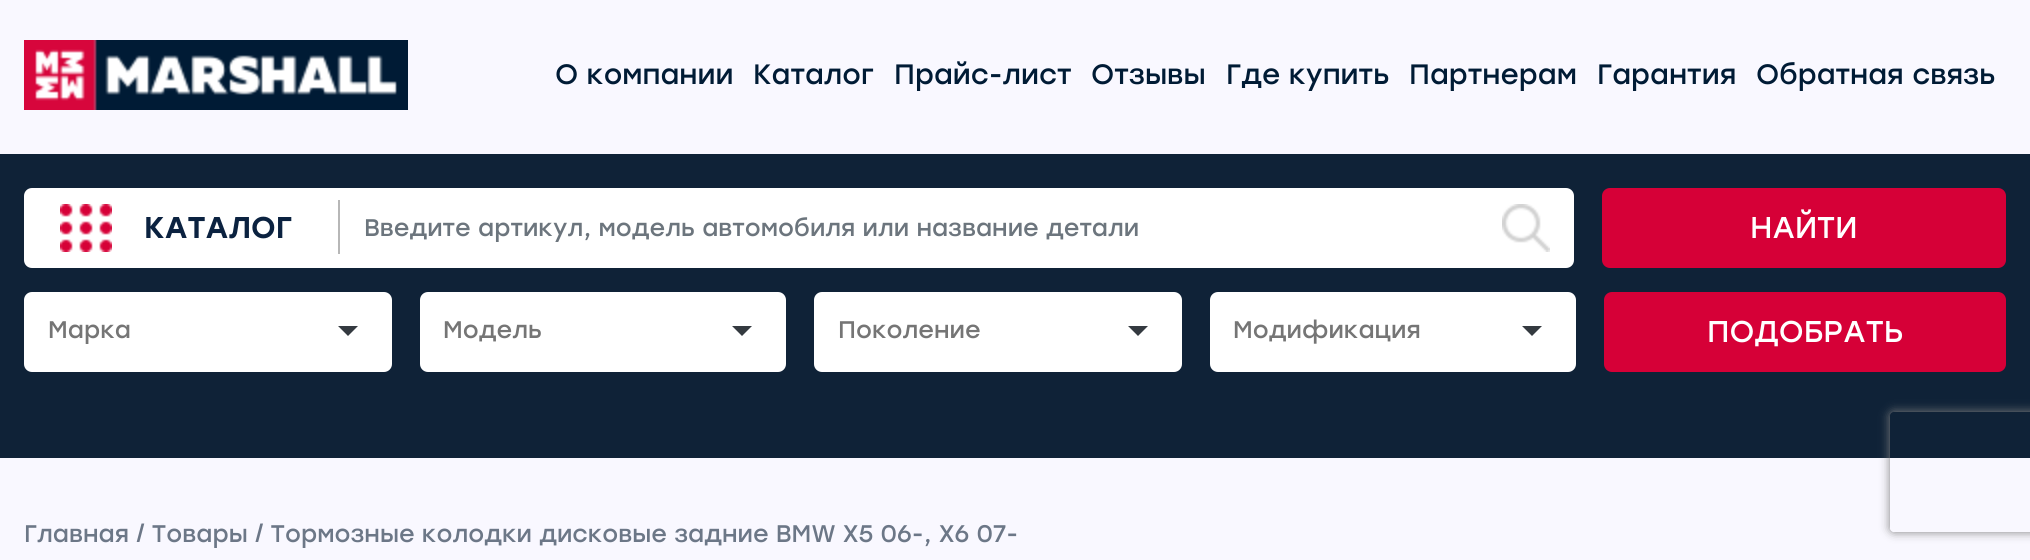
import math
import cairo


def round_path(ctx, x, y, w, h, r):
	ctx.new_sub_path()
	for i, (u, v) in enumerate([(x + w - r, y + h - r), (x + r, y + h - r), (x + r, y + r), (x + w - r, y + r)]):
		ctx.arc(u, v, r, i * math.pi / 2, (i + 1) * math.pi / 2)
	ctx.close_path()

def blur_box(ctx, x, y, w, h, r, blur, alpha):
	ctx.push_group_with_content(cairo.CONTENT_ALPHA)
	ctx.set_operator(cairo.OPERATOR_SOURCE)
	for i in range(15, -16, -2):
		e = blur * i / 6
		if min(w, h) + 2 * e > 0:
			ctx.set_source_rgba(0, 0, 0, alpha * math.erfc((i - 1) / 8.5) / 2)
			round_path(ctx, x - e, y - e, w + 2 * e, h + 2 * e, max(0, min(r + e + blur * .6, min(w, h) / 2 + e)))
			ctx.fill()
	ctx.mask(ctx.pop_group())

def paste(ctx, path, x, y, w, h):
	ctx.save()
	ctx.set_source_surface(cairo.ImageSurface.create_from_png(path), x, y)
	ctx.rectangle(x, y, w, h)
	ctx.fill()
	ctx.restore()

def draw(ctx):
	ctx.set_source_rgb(0.973, 0.969, 1)
	ctx.paint()
	paste(ctx, 'media/1.png', 24, 40, 384, 70)
	ctx.select_font_face('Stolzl')
	ctx.set_font_size(28)
	ctx.set_source_rgb(0, 0.106, 0.208)
	for x, y, s in [
		(555, 84, 'О компании'),
		(753, 84, 'Каталог'),
		(894, 84, 'Прайс-лист'),
		(1091, 84, 'Отзывы'),
		(1226, 84, 'Где купить'),
		(1409, 84, 'Партнерам'),
		(1597, 84, 'Гарантия'),
		(1756, 84, 'Обратная связь'),
	]:
		ctx.move_to(x, y)
		ctx.show_text(s)
	ctx.set_source_rgb(0.059, 0.133, 0.216)
	ctx.rectangle(0, 154, 2030, 304)
	ctx.fill()
	ctx.set_source_rgb(1, 1, 1)
	ctx.new_path()
	ctx.move_to(32, 188)
	ctx.line_to(342, 188)
	ctx.line_to(342, 268)
	ctx.line_to(32, 268)
	ctx.curve_to(27.5, 268, 24, 264.5, 24, 260)
	ctx.line_to(24, 196)
	ctx.curve_to(24, 191.5, 27.5, 188, 32, 188)
	ctx.close_path()
	ctx.fill()
	paste(ctx, 'media/2.png', 60, 204, 52, 48)
	ctx.select_font_face('Stolzl Medium')
	ctx.set_font_size(30)
	ctx.set_source_rgb(0.043, 0.133, 0.251)
	ctx.move_to(144, 238)
	ctx.show_text('КАТАЛОГ')
	ctx.set_source_rgb(0.718, 0.718, 0.718)
	ctx.rectangle(338, 200, 2, 54)
	ctx.fill()
	ctx.set_source_rgb(1, 1, 1)
	ctx.new_path()
	ctx.move_to(340, 188)
	ctx.line_to(1566, 188)
	ctx.curve_to(1570.5, 188, 1574, 191.5, 1574, 196)
	ctx.line_to(1574, 260)
	ctx.curve_to(1574, 264.5, 1570.5, 268, 1566, 268)
	ctx.line_to(340, 268)
	ctx.close_path()
	ctx.fill()
	paste(ctx, 'media/3.png', 1502, 204, 48, 48)
	ctx.select_font_face('Stolzl')
	ctx.set_font_size(24)
	ctx.set_source_rgb(0.424, 0.459, 0.49)
	ctx.move_to(364, 236)
	ctx.show_text('Введите артикул, модель автомобиля или название детали')
	ctx.set_source_rgb(0.839, 0, 0.216)
	round_path(ctx, 1602, 188, 404, 80, 8)
	ctx.fill()
	ctx.set_font_size(30)
	ctx.set_source_rgb(1, 1, 1)
	ctx.move_to(1750, 238)
	ctx.show_text('НАЙТИ')
	round_path(ctx, 24, 292, 368, 80, 8)
	ctx.fill()
	ctx.set_font_size(24)
	ctx.set_source_rgb(0.459, 0.459, 0.459)
	ctx.move_to(48, 338)
	ctx.show_text('Марка')
	ctx.set_source_rgb(0.204, 0.227, 0.251)
	ctx.new_path()
	ctx.move_to(338, 326)
	ctx.line_to(358, 326)
	ctx.line_to(348, 336)
	ctx.close_path()
	ctx.fill()
	ctx.set_source_rgb(1, 1, 1)
	round_path(ctx, 420, 292, 366, 80, 8)
	ctx.fill()
	ctx.set_source_rgb(0.459, 0.459, 0.459)
	ctx.move_to(443, 338)
	ctx.show_text('Модель')
	ctx.set_source_rgb(0.204, 0.227, 0.251)
	ctx.new_path()
	ctx.move_to(732, 326)
	ctx.line_to(752, 326)
	ctx.line_to(742, 336)
	ctx.close_path()
	ctx.fill()
	ctx.set_source_rgb(1, 1, 1)
	round_path(ctx, 814, 292, 368, 80, 8)
	ctx.fill()
	ctx.set_source_rgb(0.459, 0.459, 0.459)
	ctx.move_to(838, 338)
	ctx.show_text('Поколение')
	ctx.set_source_rgb(0.204, 0.227, 0.251)
	ctx.new_path()
	ctx.move_to(1128, 326)
	ctx.line_to(1148, 326)
	ctx.line_to(1138, 336)
	ctx.close_path()
	ctx.fill()
	ctx.set_source_rgb(1, 1, 1)
	round_path(ctx, 1210, 292, 366, 80, 8)
	ctx.fill()
	ctx.set_source_rgb(0.459, 0.459, 0.459)
	ctx.move_to(1233, 338)
	ctx.show_text('Модификация')
	ctx.set_source_rgb(0.204, 0.227, 0.251)
	ctx.new_path()
	ctx.move_to(1522, 326)
	ctx.line_to(1542, 326)
	ctx.line_to(1532, 336)
	ctx.close_path()
	ctx.fill()
	ctx.set_source_rgb(0.839, 0, 0.216)
	round_path(ctx, 1604, 292, 402, 80, 8)
	ctx.fill()
	ctx.set_font_size(30)
	ctx.set_source_rgb(1, 1, 1)
	ctx.move_to(1707, 342)
	ctx.show_text('ПОДОБРАТЬ')
	ctx.set_font_size(24)
	ctx.set_source_rgb(0.424, 0.467, 0.529)
	ctx.move_to(24, 542)
	ctx.show_text('Главная / Товары / Тормозные колодки дисковые задние BMW X5 06-, X6 07-')
	ctx.save()
	ctx.set_fill_rule(cairo.FILL_RULE_EVEN_ODD)
	ctx.new_path()
	ctx.move_to(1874, 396)
	ctx.line_to(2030, 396)
	ctx.line_to(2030, 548)
	ctx.line_to(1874, 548)
	ctx.close_path()
	ctx.move_to(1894, 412)
	ctx.line_to(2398, 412)
	ctx.curve_to(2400, 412, 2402, 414, 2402, 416)
	ctx.line_to(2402, 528)
	ctx.curve_to(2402, 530, 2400, 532, 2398, 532)
	ctx.line_to(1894, 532)
	ctx.curve_to(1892, 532, 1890, 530, 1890, 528)
	ctx.line_to(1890, 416)
	ctx.curve_to(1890, 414, 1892, 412, 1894, 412)
	ctx.close_path()
	ctx.clip()
	ctx.set_source_rgb(0.502, 0.502, 0.502)
	blur_box(ctx, 1890, 412, 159, 120, 4, 5, 1)
	ctx.restore()


surface = cairo.ImageSurface(cairo.FORMAT_RGB24, 2030, 560)
ctx = cairo.Context(surface)
options = cairo.FontOptions()
options.set_hint_metrics(cairo.HINT_METRICS_OFF)
options.set_hint_style(cairo.HINT_STYLE_NONE)
ctx.set_font_options(options)
ctx.set_miter_limit(4)
draw(ctx)
surface.write_to_png('image.png')
